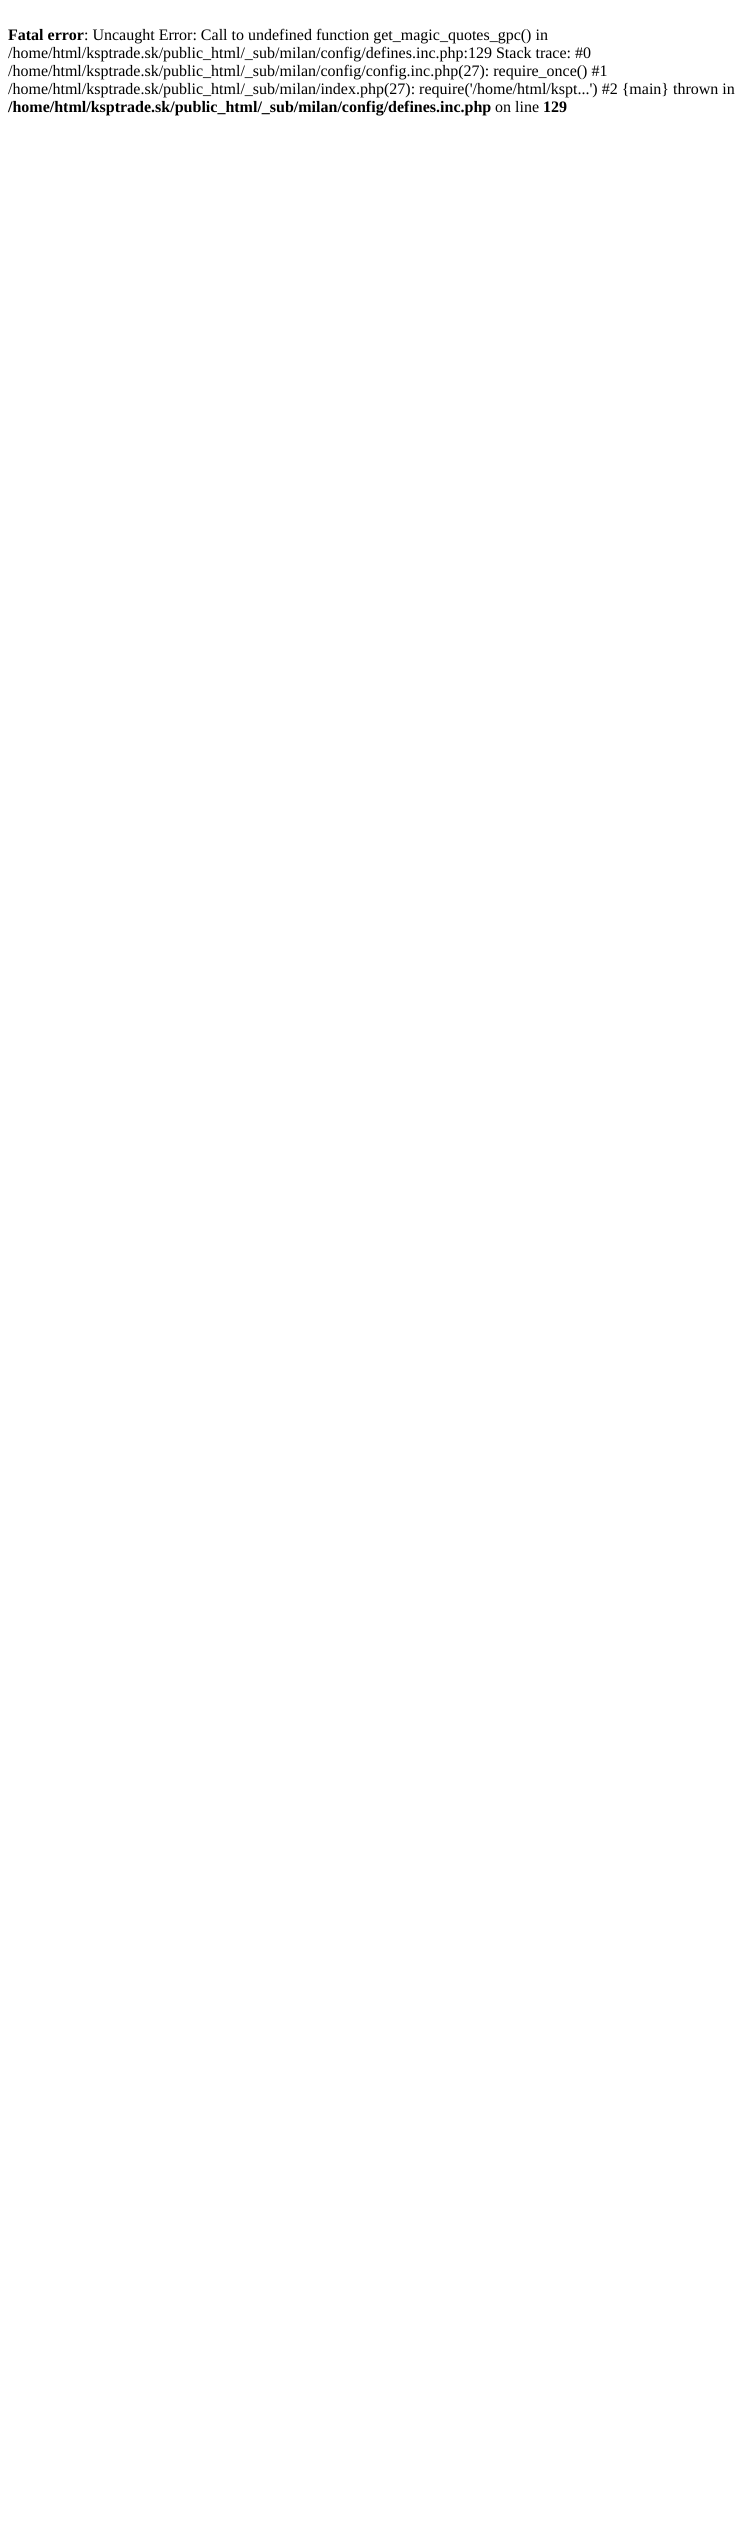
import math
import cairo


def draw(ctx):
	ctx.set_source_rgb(1, 1, 1)
	ctx.paint()
	ctx.select_font_face('Liberation Serif', cairo.FONT_SLANT_NORMAL, cairo.FONT_WEIGHT_BOLD)
	ctx.set_font_size(16)
	ctx.set_source_rgb(0, 0, 0)
	ctx.move_to(8, 40)
	ctx.show_text('Fatal error')
	ctx.select_font_face('Liberation Serif')
	for x, y, s in [
		(84, 40, ': Uncaught Error: Call to undefined function get_magic_quotes_gpc() in'),
		(8, 58, '/home/html/ksptrade.sk/public_html/_sub/milan/config/defines.inc.php:129 Stack trace: #0'),
		(8, 76, '/home/html/ksptrade.sk/public_html/_sub/milan/config/config.inc.php(27): require_once() #1'),
		(8, 94, '/home/html/ksptrade.sk/public_html/_sub/milan/index.php(27): require(\'/home/html/kspt...\') #2 {main} thrown in'),
	]:
		ctx.move_to(x, y)
		ctx.show_text(s)
	ctx.select_font_face('Liberation Serif', cairo.FONT_SLANT_NORMAL, cairo.FONT_WEIGHT_BOLD)
	ctx.move_to(8, 112)
	ctx.show_text('/home/html/ksptrade.sk/public_html/_sub/milan/config/defines.inc.php')
	ctx.select_font_face('Liberation Serif')
	ctx.move_to(495, 112)
	ctx.show_text('on line')
	ctx.select_font_face('Liberation Serif', cairo.FONT_SLANT_NORMAL, cairo.FONT_WEIGHT_BOLD)
	ctx.move_to(543, 112)
	ctx.show_text('129')


surface = cairo.ImageSurface(cairo.FORMAT_RGB24, 756, 2529)
ctx = cairo.Context(surface)
options = cairo.FontOptions()
options.set_hint_metrics(cairo.HINT_METRICS_OFF)
options.set_hint_style(cairo.HINT_STYLE_NONE)
ctx.set_font_options(options)
ctx.set_miter_limit(4)
draw(ctx)
surface.write_to_png('image.png')
